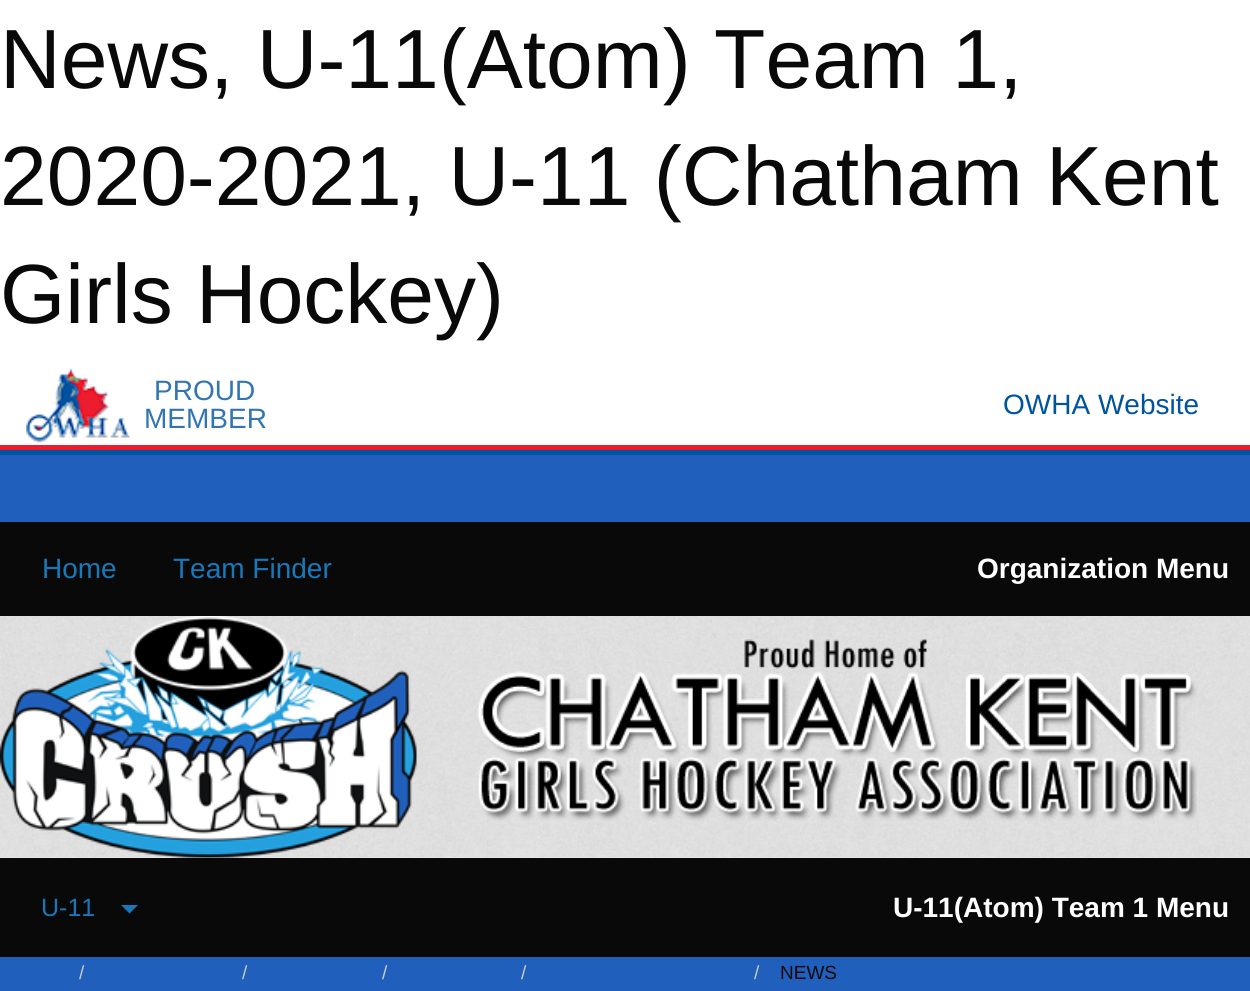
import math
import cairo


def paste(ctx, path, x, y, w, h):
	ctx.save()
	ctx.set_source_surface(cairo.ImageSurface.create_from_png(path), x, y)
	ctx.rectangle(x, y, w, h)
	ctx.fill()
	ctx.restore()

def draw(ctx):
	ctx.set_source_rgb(1, 1, 1)
	ctx.paint()
	ctx.select_font_face('Liberation Sans')
	ctx.set_font_size(84)
	ctx.set_source_rgb(0.039, 0.039, 0.039)
	for x, y, s in [
		(0, 88, 'News, U-11(Atom) Team 1,'),
		(0, 205, '2020-2021, U-11 (Chatham Kent'),
		(0, 323, 'Girls Hockey)'),
	]:
		ctx.move_to(x, y)
		ctx.show_text(s)
	paste(ctx, 'media/1.png', 26, 367, 104, 76)
	ctx.set_font_size(28)
	ctx.set_source_rgb(0.2, 0.459, 0.698)
	ctx.move_to(154, 400)
	ctx.show_text('PROUD')
	ctx.move_to(144, 428)
	ctx.show_text('MEMBER')
	ctx.set_source_rgb(0, 0.325, 0.624)
	ctx.move_to(1003, 414)
	ctx.show_text('OWHA Website')
	ctx.set_source_rgb(0.929, 0.106, 0.176)
	ctx.rectangle(0, 445, 1250, 5)
	ctx.fill()
	ctx.set_source_rgb(0, 0.325, 0.624)
	ctx.rectangle(0, 450, 1250, 5)
	ctx.fill()
	ctx.set_source_rgb(0.125, 0.376, 0.737)
	ctx.rectangle(0, 455, 1250, 536)
	ctx.fill()
	ctx.set_source_rgb(0.039, 0.039, 0.039)
	ctx.rectangle(0, 522, 1250, 94)
	ctx.fill()
	ctx.set_source_rgb(0.09, 0.475, 0.729)
	ctx.move_to(42, 578)
	ctx.show_text('Home')
	ctx.move_to(173, 578)
	ctx.show_text('Team Finder')
	ctx.select_font_face('Liberation Sans', cairo.FONT_SLANT_NORMAL, cairo.FONT_WEIGHT_BOLD)
	ctx.set_source_rgb(0.996, 0.996, 0.996)
	ctx.move_to(977, 578)
	ctx.show_text('Organization Menu')
	ctx.set_source_rgb(0.933, 0.933, 0.933)
	ctx.rectangle(0, 616, 1250, 242)
	ctx.fill()
	paste(ctx, 'media/2.png', 0, 616, 1250, 242)
	paste(ctx, 'media/3.png', 0, 616, 417, 242)
	paste(ctx, 'media/4.png', 477, 639, 720, 182)
	ctx.set_source_rgb(0.039, 0.039, 0.039)
	ctx.rectangle(0, 858, 1250, 99)
	ctx.fill()
	ctx.select_font_face('Liberation Sans')
	ctx.set_font_size(25)
	ctx.set_source_rgb(0.09, 0.475, 0.729)
	ctx.move_to(41, 916)
	ctx.show_text('U-11')
	ctx.new_path()
	ctx.move_to(121, 905)
	ctx.line_to(138, 905)
	ctx.line_to(129.5, 913.5)
	ctx.close_path()
	ctx.fill()
	ctx.select_font_face('Liberation Sans', cairo.FONT_SLANT_NORMAL, cairo.FONT_WEIGHT_BOLD)
	ctx.set_font_size(28)
	ctx.set_source_rgb(0.996, 0.996, 0.996)
	ctx.move_to(893, 917)
	ctx.show_text('U-11(Atom) Team 1 Menu')
	ctx.select_font_face('Liberation Sans')
	ctx.set_font_size(19)
	ctx.set_source_rgb(0.792, 0.792, 0.792)
	for x, y, s in [
		(79, 979, '/'),
		(242, 979, '/'),
		(382, 979, '/'),
		(521, 979, '/'),
		(754, 979, '/'),
	]:
		ctx.move_to(x, y)
		ctx.show_text(s)
	ctx.set_source_rgb(0.039, 0.039, 0.039)
	ctx.move_to(780, 979)
	ctx.show_text('NEWS')


surface = cairo.ImageSurface(cairo.FORMAT_RGB24, 1250, 991)
ctx = cairo.Context(surface)
options = cairo.FontOptions()
options.set_hint_metrics(cairo.HINT_METRICS_OFF)
options.set_hint_style(cairo.HINT_STYLE_NONE)
ctx.set_font_options(options)
ctx.set_miter_limit(4)
draw(ctx)
surface.write_to_png('image.png')
